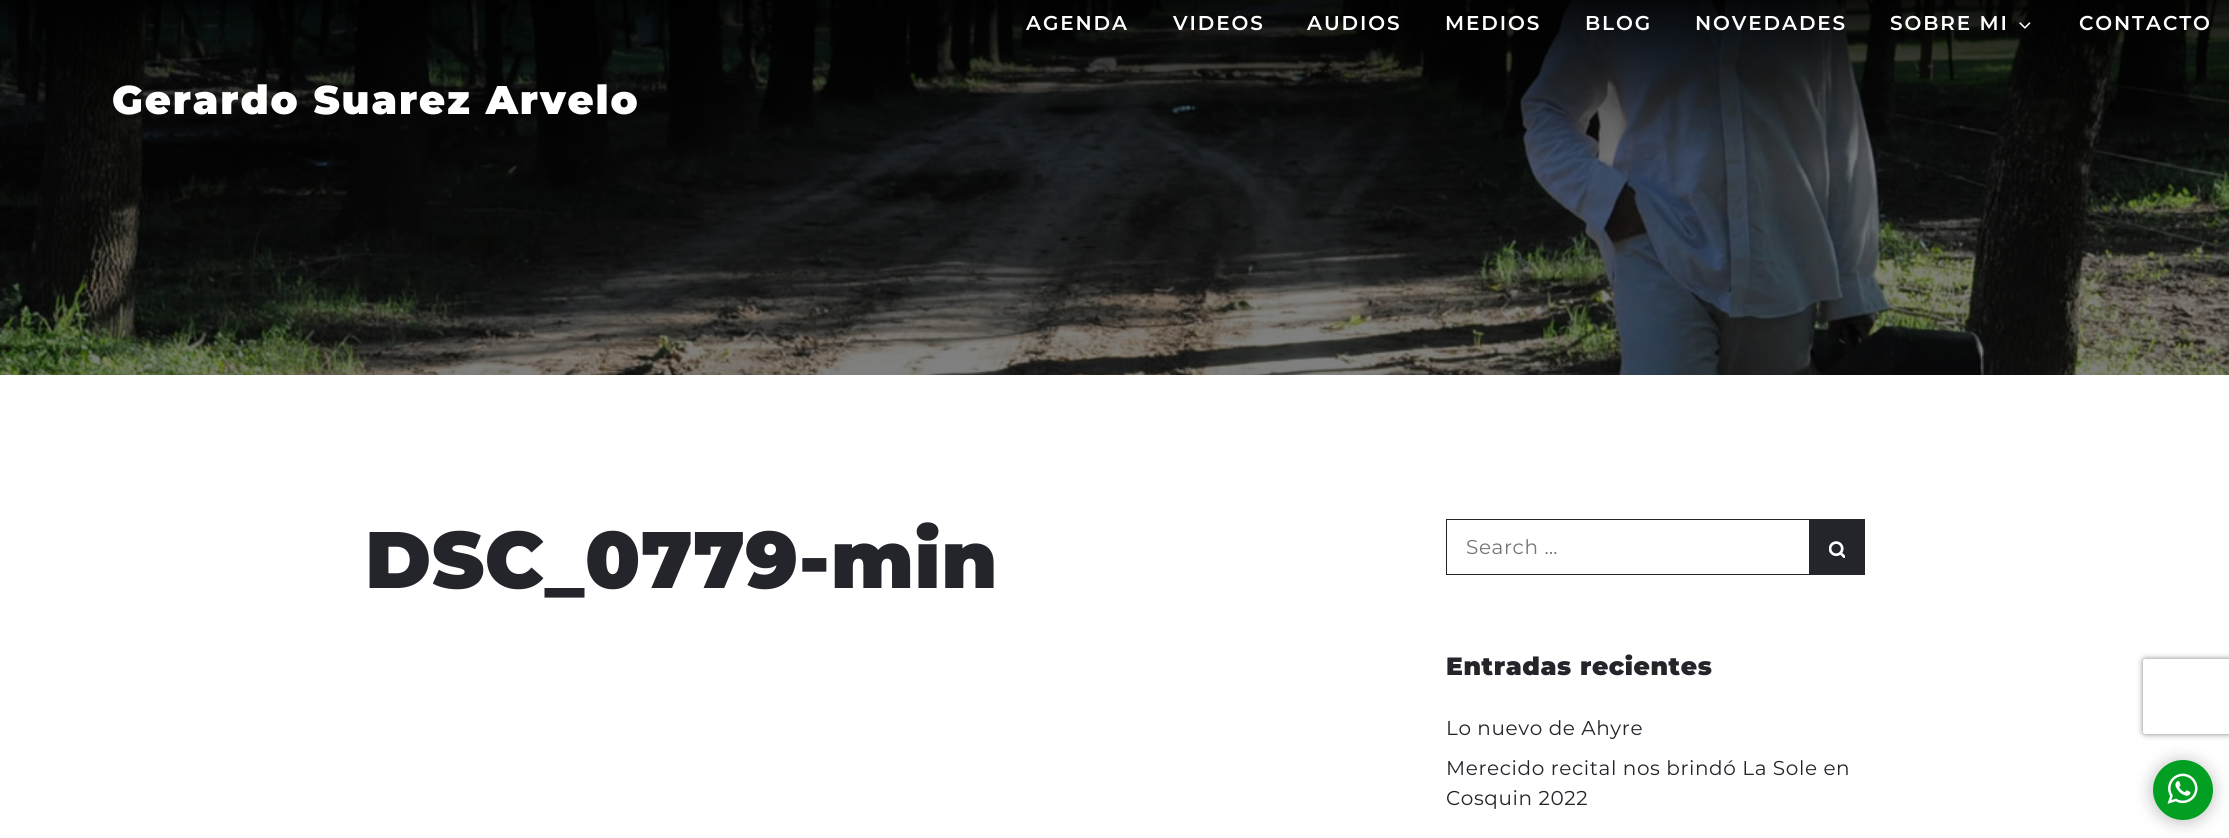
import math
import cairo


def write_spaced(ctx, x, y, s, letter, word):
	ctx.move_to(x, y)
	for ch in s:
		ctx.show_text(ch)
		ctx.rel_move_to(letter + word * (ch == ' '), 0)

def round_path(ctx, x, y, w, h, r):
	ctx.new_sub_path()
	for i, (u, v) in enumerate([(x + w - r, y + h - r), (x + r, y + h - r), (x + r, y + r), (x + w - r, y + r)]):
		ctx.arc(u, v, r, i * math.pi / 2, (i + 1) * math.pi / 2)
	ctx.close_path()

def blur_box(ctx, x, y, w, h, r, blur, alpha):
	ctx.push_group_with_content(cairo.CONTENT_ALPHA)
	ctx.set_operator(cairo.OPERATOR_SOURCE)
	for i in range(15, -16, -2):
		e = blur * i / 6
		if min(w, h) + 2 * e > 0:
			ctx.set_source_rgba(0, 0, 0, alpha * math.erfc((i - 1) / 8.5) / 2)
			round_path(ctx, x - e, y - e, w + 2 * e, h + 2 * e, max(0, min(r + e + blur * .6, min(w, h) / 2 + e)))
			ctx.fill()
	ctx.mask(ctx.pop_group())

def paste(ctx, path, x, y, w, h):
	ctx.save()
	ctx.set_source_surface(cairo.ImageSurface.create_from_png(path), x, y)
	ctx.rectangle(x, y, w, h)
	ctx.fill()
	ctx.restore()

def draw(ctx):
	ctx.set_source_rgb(1, 1, 1)
	ctx.paint()
	paste(ctx, 'media/2.png', 0, 0, 2229, 375)
	ctx.select_font_face('Montserrat SemiBold')
	ctx.set_font_size(20)
	ctx.set_source_rgb(1, 1, 1)
	for x, y, s in [
		(1026, 30, 'AGENDA'),
		(1173, 30, 'VIDEOS'),
		(1307, 30, 'AUDIOS'),
		(1445, 30, 'MEDIOS'),
		(1585, 30, 'BLOG'),
		(1695, 30, 'NOVEDADES'),
		(1890, 30, 'SOBRE MI'),
	]:
		write_spaced(ctx, x, y, s, 1.9, 0)
	paste(ctx, 'media/1.png', 2019, 22, 12, 7)
	write_spaced(ctx, 2079, 30, 'CONTACTO', 1.9, 0)
	ctx.select_font_face('Montserrat Black')
	ctx.set_font_size(40)
	write_spaced(ctx, 112, 114, 'Gerardo Suarez Arvelo', 1.9, 0)
	ctx.set_font_size(80)
	ctx.set_source_rgb(0.141, 0.141, 0.169)
	write_spaced(ctx, 365, 588, 'DSC_0779-min', 0.6, 0)
	ctx.rectangle(1446.5, 519.5, 418, 55)
	ctx.set_line_width(1)
	ctx.stroke()
	ctx.select_font_face('Montserrat')
	ctx.set_font_size(20)
	ctx.set_source_rgb(0.459, 0.459, 0.459)
	write_spaced(ctx, 1466, 554, 'Search …', 0.6, 0)
	ctx.set_source_rgb(0.141, 0.141, 0.169)
	ctx.rectangle(1809, 520, 55, 54)
	ctx.fill()
	paste(ctx, 'media/3.png', 1829, 541, 16, 17)
	ctx.select_font_face('Montserrat Black')
	ctx.set_font_size(25)
	write_spaced(ctx, 1446, 675, 'Entradas recientes', 0.6, 0)
	ctx.select_font_face('Montserrat')
	ctx.set_font_size(20)
	for x, y, s in [
		(1446, 735, 'Lo nuevo de Ahyre'),
		(1446, 775, 'Merecido recital nos brindó La Sole en'),
		(1446, 805, 'Cosquin 2022'),
	]:
		write_spaced(ctx, x, y, s, 0.6, 0)
	ctx.set_source_rgb(0, 0, 0)
	blur_box(ctx, 2150, 759, 65, 65, 32.5, 7.5, 0.2)
	ctx.set_source_rgb(0.012, 0.624, 0.133)
	ctx.arc(2183, 790, 30, 0, 2 * math.pi)
	ctx.fill()
	paste(ctx, 'media/4.png', 2167, 773, 31, 31)
	ctx.save()
	ctx.set_fill_rule(cairo.FILL_RULE_EVEN_ODD)
	ctx.new_path()
	ctx.move_to(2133, 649)
	ctx.line_to(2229, 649)
	ctx.line_to(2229, 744)
	ctx.line_to(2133, 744)
	ctx.close_path()
	ctx.move_to(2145.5, 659)
	ctx.line_to(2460.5, 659)
	ctx.curve_to(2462, 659, 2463, 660, 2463, 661.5)
	ctx.line_to(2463, 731.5)
	ctx.curve_to(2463, 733, 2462, 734, 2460.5, 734)
	ctx.line_to(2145.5, 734)
	ctx.curve_to(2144, 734, 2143, 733, 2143, 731.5)
	ctx.line_to(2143, 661.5)
	ctx.curve_to(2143, 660, 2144, 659, 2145.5, 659)
	ctx.close_path()
	ctx.clip()
	ctx.set_source_rgb(0.502, 0.502, 0.502)
	blur_box(ctx, 2143, 659, 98, 75, 2.5, 3, 1)
	ctx.restore()


surface = cairo.ImageSurface(cairo.FORMAT_RGB24, 2229, 838)
ctx = cairo.Context(surface)
options = cairo.FontOptions()
options.set_hint_metrics(cairo.HINT_METRICS_OFF)
options.set_hint_style(cairo.HINT_STYLE_NONE)
ctx.set_font_options(options)
ctx.set_miter_limit(4)
draw(ctx)
surface.write_to_png('image.png')
